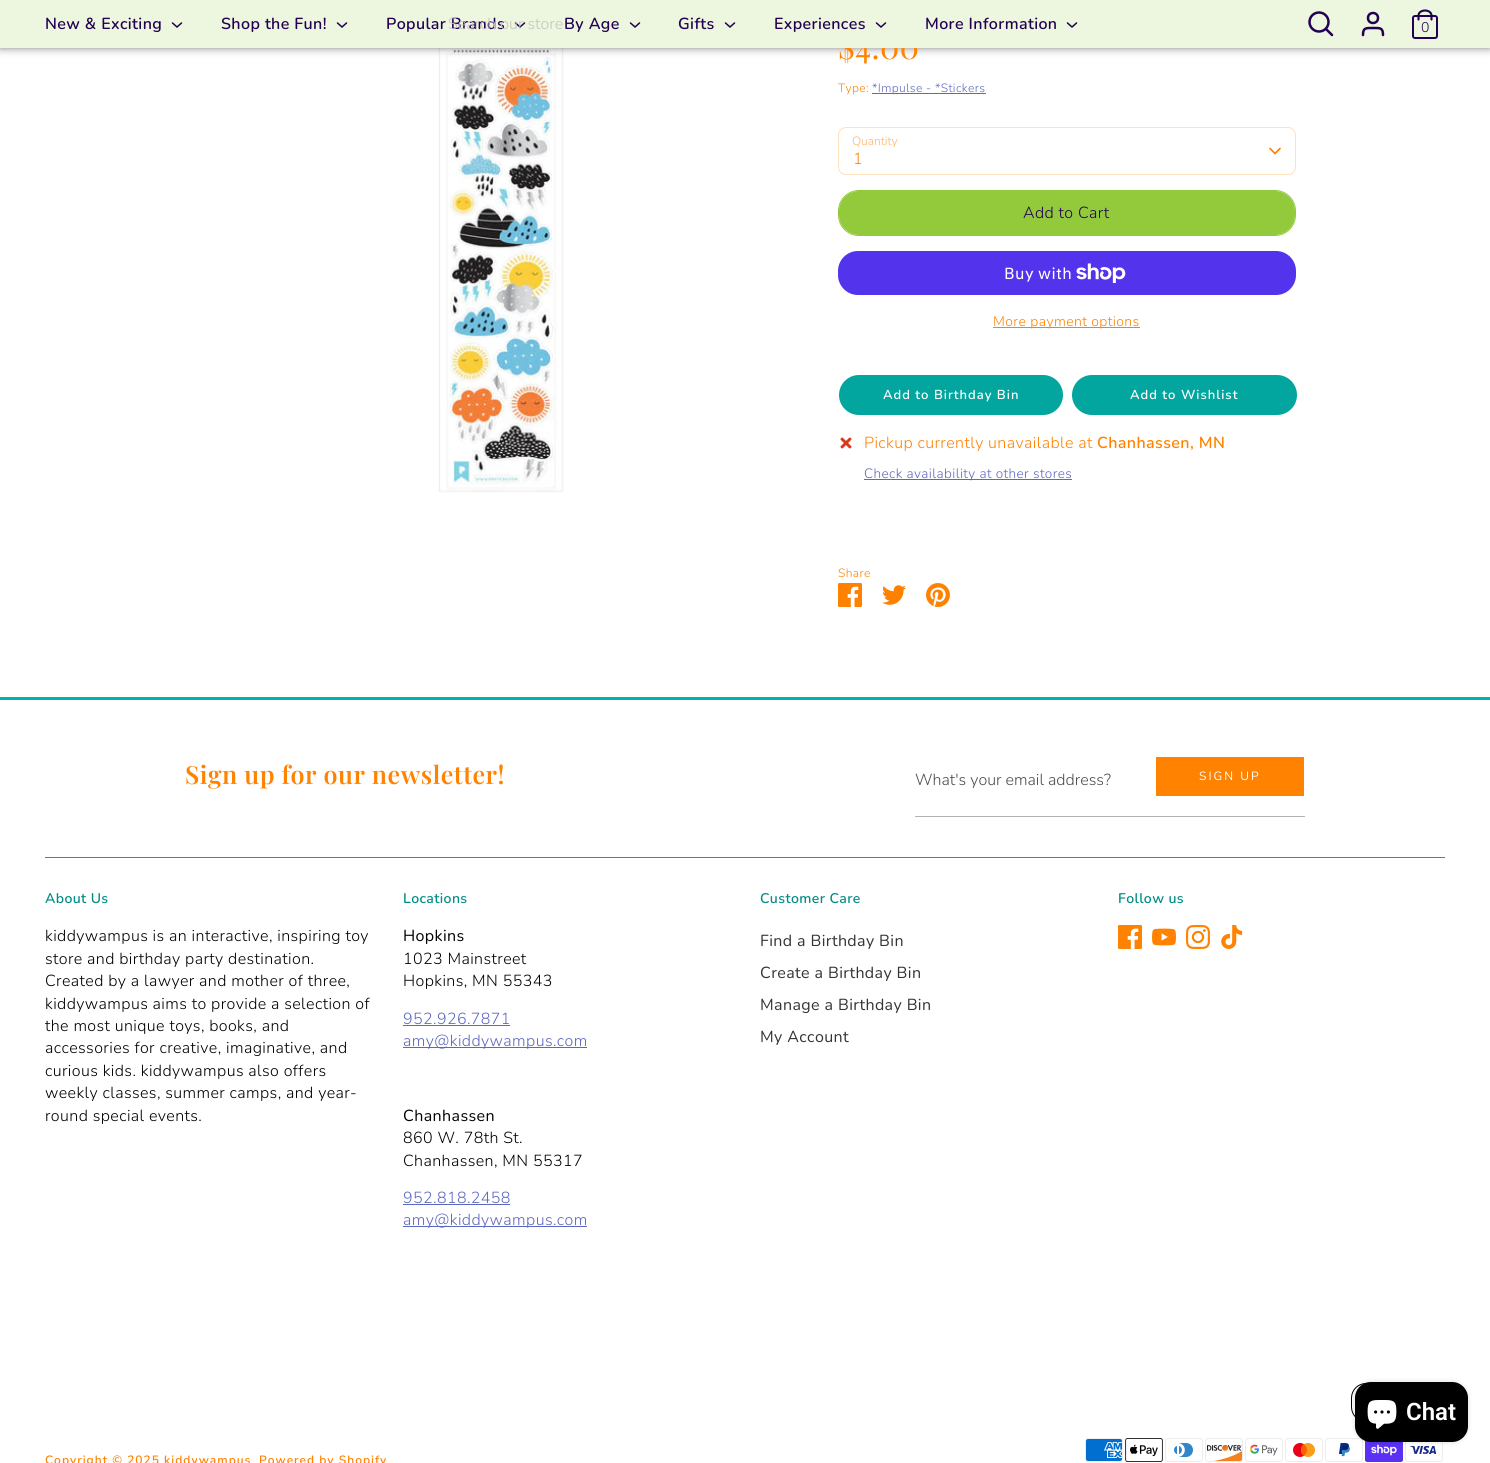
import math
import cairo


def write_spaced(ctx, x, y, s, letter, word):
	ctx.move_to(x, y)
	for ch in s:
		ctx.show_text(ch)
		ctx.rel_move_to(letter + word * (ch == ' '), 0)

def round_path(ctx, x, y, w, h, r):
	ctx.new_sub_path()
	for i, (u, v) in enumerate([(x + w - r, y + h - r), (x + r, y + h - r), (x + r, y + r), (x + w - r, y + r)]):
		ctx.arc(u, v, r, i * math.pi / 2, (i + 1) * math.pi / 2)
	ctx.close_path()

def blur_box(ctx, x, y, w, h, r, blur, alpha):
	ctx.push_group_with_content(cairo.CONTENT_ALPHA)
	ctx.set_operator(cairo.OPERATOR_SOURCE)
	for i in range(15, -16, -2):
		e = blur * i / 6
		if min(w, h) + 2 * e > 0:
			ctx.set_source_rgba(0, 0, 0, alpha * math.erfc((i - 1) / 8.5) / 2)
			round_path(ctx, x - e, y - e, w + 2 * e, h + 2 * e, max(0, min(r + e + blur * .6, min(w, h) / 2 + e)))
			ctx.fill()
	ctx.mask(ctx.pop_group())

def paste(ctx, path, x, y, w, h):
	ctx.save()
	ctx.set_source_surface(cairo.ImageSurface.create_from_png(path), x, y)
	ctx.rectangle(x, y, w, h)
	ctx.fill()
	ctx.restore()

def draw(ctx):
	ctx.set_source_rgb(1, 1, 1)
	ctx.paint()
	paste(ctx, 'media/1.png', 438, 48, 126, 445)
	ctx.set_source_rgb(0, 0, 0)
	blur_box(ctx, 0, -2, 1490, 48, 0, 5, 0.75)
	ctx.select_font_face('Playfair Display')
	ctx.set_font_size(32)
	ctx.set_source_rgb(1, 0.51, 0)
	write_spaced(ctx, 838, 59, '$4.00', 0.5, 0)
	ctx.set_source_rgb(0.929, 0.961, 0.871)
	ctx.rectangle(0, 0, 1490, 48)
	ctx.fill()
	ctx.select_font_face('Nunito SemiBold')
	ctx.set_font_size(16)
	ctx.set_source_rgb(0.137, 0, 0.318)
	write_spaced(ctx, 45, 29, 'New & Exciting', 0.4, 0)
	ctx.new_path()
	ctx.move_to(172.5, 23)
	ctx.line_to(177, 27)
	ctx.line_to(181.5, 23)
	ctx.set_line_width(1.5)
	ctx.set_line_cap(cairo.LINE_CAP_ROUND)
	ctx.stroke()
	write_spaced(ctx, 221, 29, 'Shop the Fun!', 0.4, 0)
	ctx.new_path()
	ctx.move_to(337.5, 23)
	ctx.line_to(342, 27)
	ctx.line_to(346.5, 23)
	ctx.stroke()
	write_spaced(ctx, 386, 29, 'Popular Brands', 0.4, 0)
	ctx.new_path()
	ctx.move_to(515.5, 23)
	ctx.line_to(520, 27)
	ctx.line_to(524.5, 23)
	ctx.stroke()
	write_spaced(ctx, 564, 29, 'By Age', 0.4, 0)
	ctx.new_path()
	ctx.move_to(630.5, 23)
	ctx.line_to(635, 27)
	ctx.line_to(639.5, 23)
	ctx.stroke()
	write_spaced(ctx, 678, 29, 'Gifts', 0.4, 0)
	ctx.new_path()
	ctx.move_to(725.5, 23)
	ctx.line_to(730, 27)
	ctx.line_to(734.5, 23)
	ctx.stroke()
	write_spaced(ctx, 774, 29, 'Experiences', 0.4, 0)
	ctx.new_path()
	ctx.move_to(876.5, 23)
	ctx.line_to(881, 27)
	ctx.line_to(885.5, 23)
	ctx.stroke()
	write_spaced(ctx, 925, 29, 'More Information', 0.4, 0)
	ctx.new_path()
	ctx.move_to(1067.5, 23)
	ctx.line_to(1072, 27)
	ctx.line_to(1076.5, 23)
	ctx.stroke()
	ctx.select_font_face('Nunito Light')
	ctx.set_source_rgb(0.769, 0.769, 0.761)
	ctx.move_to(448, 29)
	ctx.show_text('Search our store')
	ctx.new_path()
	ctx.arc(1319, 22, 9.5, 0, 2 * math.pi)
	ctx.set_source_rgb(0.137, 0, 0.318)
	ctx.set_line_width(2.5)
	ctx.set_line_cap(cairo.LINE_CAP_BUTT)
	ctx.stroke()
	ctx.new_path()
	ctx.move_to(1332, 35)
	ctx.line_to(1326, 29)
	ctx.set_line_cap(cairo.LINE_CAP_ROUND)
	ctx.stroke()
	ctx.new_path()
	ctx.move_to(1383, 35)
	ctx.curve_to(1383, 27.5, 1380, 28, 1373, 28)
	ctx.curve_to(1366, 28, 1363, 27.5, 1363, 35)
	ctx.stroke()
	ctx.arc(1373, 18, 5, 0, 2 * math.pi)
	ctx.set_line_cap(cairo.LINE_CAP_BUTT)
	ctx.stroke()
	round_path(ctx, 1413, 16, 24, 22, 2)
	ctx.set_line_width(2)
	ctx.stroke()
	ctx.new_path()
	ctx.move_to(1418.5, 19.5)
	ctx.line_to(1418.5, 15.5)
	ctx.curve_to(1418.5, 12.5, 1421.5, 10.5, 1425, 10.5)
	ctx.curve_to(1428.5, 10.5, 1431.5, 12.5, 1431.5, 15.5)
	ctx.line_to(1431.5, 19.5)
	ctx.set_line_width(2.1)
	ctx.set_line_cap(cairo.LINE_CAP_ROUND)
	ctx.stroke()
	ctx.set_font_size(14)
	ctx.move_to(1421, 32)
	ctx.show_text('0')
	ctx.set_font_size(12)
	ctx.set_source_rgb(1, 0.51, 0)
	write_spaced(ctx, 838, 92, 'Type:', 0.4, 0)
	ctx.set_source_rgb(0.365, 0.408, 0.749)
	ctx.rectangle(872, 93, 114, 1)
	ctx.fill()
	write_spaced(ctx, 872, 92, '*Impulse - *Stickers', 0.4, 0)
	ctx.set_source_rgb(1, 0.702, 0.4)
	ctx.move_to(852, 145)
	ctx.show_text('Quantity')
	round_path(ctx, 838.5, 127.5, 457, 47, 7.5)
	ctx.set_source_rgb(1, 0.878, 0.749)
	ctx.set_line_width(1)
	ctx.set_line_cap(cairo.LINE_CAP_BUTT)
	ctx.stroke()
	ctx.new_path()
	ctx.move_to(1270, 148.5)
	ctx.line_to(1275, 153.5)
	ctx.line_to(1280, 148.5)
	ctx.set_source_rgb(1, 0.506, 0)
	ctx.set_line_width(1.7)
	ctx.set_line_cap(cairo.LINE_CAP_ROUND)
	ctx.set_line_join(cairo.LINE_JOIN_ROUND)
	ctx.stroke()
	ctx.set_font_size(16)
	ctx.set_source_rgb(1, 0.51, 0)
	write_spaced(ctx, 853, 164, '1', 0.4, 0)
	round_path(ctx, 838.5, 190.5, 457, 45, 20.5)
	ctx.set_source_rgb(0.576, 0.792, 0.231)
	ctx.set_line_width(1)
	ctx.set_line_cap(cairo.LINE_CAP_BUTT)
	ctx.set_line_join(cairo.LINE_JOIN_MITER)
	ctx.stroke()
	round_path(ctx, 839, 191, 456, 44, 20)
	ctx.fill()
	ctx.set_source_rgb(0.137, 0, 0.318)
	write_spaced(ctx, 1023, 218, 'Add to Cart', 0.4, 0)
	ctx.set_source_rgb(0.329, 0.2, 0.922)
	round_path(ctx, 838, 251, 458, 44, 20)
	ctx.fill()
	ctx.select_font_face('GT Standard')
	ctx.set_source_rgb(1, 1, 1)
	write_spaced(ctx, 1004, 279, 'Buy with', 0.4, 0)
	paste(ctx, 'media/2.png', 1076, 263, 50, 20)
	ctx.set_source_rgb(1, 0.506, 0)
	ctx.rectangle(993, 327, 147, 1)
	ctx.fill()
	ctx.select_font_face('Nunito Light')
	ctx.set_font_size(14)
	ctx.set_source_rgb(1, 0.51, 0)
	write_spaced(ctx, 993, 326, 'More payment options', 0.4, 0)
	ctx.set_source_rgb(0.008, 0.651, 0.62)
	round_path(ctx, 839, 375, 224, 40, 20)
	ctx.fill()
	ctx.select_font_face('Nunito SemiBold')
	ctx.set_font_size(13)
	ctx.set_source_rgb(1, 1, 1)
	write_spaced(ctx, 883, 399, 'Add to Birthday Bin', 1, 0)
	ctx.set_source_rgb(0.008, 0.651, 0.62)
	round_path(ctx, 1072, 375, 225, 40, 20)
	ctx.fill()
	ctx.set_source_rgb(1, 1, 1)
	write_spaced(ctx, 1130, 399, 'Add to Wishlist', 1, 0)
	paste(ctx, 'media/3.png', 840, 437, 12, 12)
	ctx.select_font_face('Nunito Light')
	ctx.set_font_size(16)
	ctx.set_source_rgb(1, 0.51, 0)
	write_spaced(ctx, 864, 448, 'Pickup currently unavailable at', 0.4, 0)
	ctx.select_font_face('Nunito SemiBold')
	write_spaced(ctx, 1097, 448, 'Chanhassen, MN', 0.4, 0)
	ctx.set_source_rgb(0.365, 0.408, 0.749)
	ctx.rectangle(864, 479, 208, 1)
	ctx.fill()
	ctx.select_font_face('Nunito Light')
	ctx.set_font_size(13.6)
	write_spaced(ctx, 864, 478, 'Check availability at other stores', 0.4, 0)
	ctx.set_font_size(12)
	ctx.set_source_rgb(1, 0.51, 0)
	write_spaced(ctx, 838, 577, 'Share', 0.4, 0)
	paste(ctx, 'media/4.png', 838, 583, 24, 24)
	paste(ctx, 'media/5.png', 882, 585, 24, 20)
	paste(ctx, 'media/6.png', 926, 583, 24, 24)
	ctx.set_source_rgb(0, 0.698, 0.663)
	ctx.rectangle(0, 697, 1490, 3)
	ctx.fill()
	ctx.select_font_face('Playfair Display SemiBold')
	ctx.set_font_size(25)
	ctx.set_source_rgb(1, 0.51, 0)
	write_spaced(ctx, 185, 784, 'Sign up for our newsletter!', 0.5, 0)
	ctx.set_source_rgb(0.702, 0.702, 0.702)
	ctx.rectangle(915, 816, 390, 1)
	ctx.fill()
	ctx.select_font_face('Nunito Light')
	ctx.set_font_size(16)
	ctx.set_source_rgb(0.302, 0.302, 0.302)
	ctx.move_to(915, 785)
	ctx.show_text('What\'s your email address?')
	ctx.set_source_rgb(1, 0.51, 0)
	ctx.rectangle(1156, 757, 148, 39)
	ctx.fill()
	ctx.select_font_face('Nunito')
	ctx.set_font_size(12)
	ctx.set_source_rgb(1, 1, 1)
	write_spaced(ctx, 1199, 780, 'SIGN UP', 2, 0)
	ctx.set_source_rgb(0.008, 0.651, 0.62)
	ctx.rectangle(45, 857, 1400, 1)
	ctx.fill()
	ctx.select_font_face('Nunito SemiBold')
	ctx.set_font_size(14)
	ctx.set_source_rgb(0.008, 0.553, 0.525)
	write_spaced(ctx, 45, 903, 'About Us', 0.4, 0)
	ctx.select_font_face('Nunito Light')
	ctx.set_font_size(16)
	ctx.set_source_rgb(0, 0, 0)
	for x, y, s in [
		(45, 941, 'kiddywampus is an interactive, inspiring toy'),
		(45, 964, 'store and birthday party destination.'),
		(45, 986, 'Created by a lawyer and mother of three,'),
		(45, 1009, 'kiddywampus aims to provide a selection of'),
		(45, 1031, 'the most unique toys, books, and'),
		(45, 1053, 'accessories for creative, imaginative, and'),
		(45, 1076, 'curious kids. kiddywampus also offers'),
		(45, 1098, 'weekly classes, summer camps, and year-'),
		(45, 1121, 'round special events.'),
	]:
		write_spaced(ctx, x, y, s, 0.4, 0)
	ctx.select_font_face('Nunito SemiBold')
	ctx.set_font_size(14)
	ctx.set_source_rgb(0.008, 0.553, 0.525)
	write_spaced(ctx, 403, 903, 'Locations', 0.4, 0)
	ctx.select_font_face('Nunito')
	ctx.set_font_size(16)
	ctx.set_source_rgb(0, 0, 0)
	write_spaced(ctx, 403, 941, 'Hopkins', 0.4, 0)
	ctx.select_font_face('Nunito Light')
	write_spaced(ctx, 403, 964, '1023 Mainstreet', 0.4, 0)
	write_spaced(ctx, 403, 986, 'Hopkins, MN 55343', 0.4, 0)
	ctx.set_source_rgb(0.365, 0.408, 0.749)
	write_spaced(ctx, 403, 1024, '952.926.7871', 0.4, 0)
	ctx.rectangle(403, 1025, 107, 1)
	ctx.fill()
	ctx.rectangle(403, 1047, 184, 1)
	ctx.fill()
	write_spaced(ctx, 403, 1046, 'amy@kiddywampus.com', 0.4, 0)
	ctx.select_font_face('Nunito')
	ctx.set_source_rgb(0, 0, 0)
	write_spaced(ctx, 403, 1121, 'Chanhassen', 0.4, 0)
	ctx.select_font_face('Nunito Light')
	write_spaced(ctx, 403, 1143, '860 W. 78th St.', 0.4, 0)
	write_spaced(ctx, 403, 1166, 'Chanhassen, MN 55317', 0.4, 0)
	ctx.set_source_rgb(0.365, 0.408, 0.749)
	write_spaced(ctx, 403, 1203, '952.818.2458', 0.4, 0)
	ctx.rectangle(403, 1204, 107, 1)
	ctx.fill()
	ctx.rectangle(403, 1226, 184, 1)
	ctx.fill()
	write_spaced(ctx, 403, 1225, 'amy@kiddywampus.com', 0.4, 0)
	ctx.select_font_face('Nunito SemiBold')
	ctx.set_font_size(14)
	ctx.set_source_rgb(0.008, 0.553, 0.525)
	write_spaced(ctx, 760, 903, 'Customer Care', 0.4, 0)
	ctx.select_font_face('Nunito')
	ctx.set_font_size(16)
	ctx.set_source_rgb(0.2, 0.2, 0.2)
	for x, y, s in [
		(760, 946, 'Find a Birthday Bin'),
		(760, 978, 'Create a Birthday Bin'),
		(760, 1010, 'Manage a Birthday Bin'),
		(760, 1042, 'My Account'),
	]:
		write_spaced(ctx, x, y, s, 0.4, 0)
	ctx.select_font_face('Nunito SemiBold')
	ctx.set_font_size(14)
	ctx.set_source_rgb(0.008, 0.553, 0.525)
	write_spaced(ctx, 1118, 903, 'Follow us', 0.4, 0)
	paste(ctx, 'media/7.png', 1118, 925, 24, 24)
	paste(ctx, 'media/8.png', 1152, 928, 24, 18)
	paste(ctx, 'media/9.png', 1186, 925, 24, 24)
	paste(ctx, 'media/10.png', 1221, 925, 22, 24)
	ctx.set_font_size(12)
	ctx.set_source_rgb(1, 0.51, 0)
	write_spaced(ctx, 45, 1464, 'Copyright © 2025 kiddywampus', 1, 0)
	write_spaced(ctx, 259, 1464, 'Powered by Shopify', 1, 0)
	round_path(ctx, 1351.5, 1383.5, 92, 38, 14.5)
	ctx.set_source_rgb(0, 0, 0)
	ctx.stroke()
	paste(ctx, 'media/11.png', 1085, 1438, 38, 24)
	paste(ctx, 'media/12.png', 1125, 1438, 38, 24)
	paste(ctx, 'media/13.png', 1165, 1438, 38, 24)
	paste(ctx, 'media/14.png', 1205, 1438, 38, 24)
	paste(ctx, 'media/15.png', 1245, 1438, 38, 24)
	paste(ctx, 'media/16.png', 1285, 1438, 38, 24)
	paste(ctx, 'media/17.png', 1325, 1438, 38, 24)
	paste(ctx, 'media/18.png', 1365, 1440, 38, 22)
	paste(ctx, 'media/19.png', 1405, 1442, 38, 20)
	ctx.set_source_rgb(0, 0, 0)
	blur_box(ctx, 1355, 1382, 113, 60, 16, 2.5, 0.15)
	ctx.set_source_rgb(0, 0, 0)
	round_path(ctx, 1355, 1382, 113, 60, 16)
	ctx.fill()
	paste(ctx, 'media/20.png', 1367, 1400, 30, 29)
	ctx.select_font_face('Roboto SemiBold')
	ctx.set_font_size(24)
	ctx.set_source_rgb(1, 1, 1)
	ctx.move_to(1406, 1420)
	ctx.show_text('Chat')


surface = cairo.ImageSurface(cairo.FORMAT_RGB24, 1490, 1463)
ctx = cairo.Context(surface)
options = cairo.FontOptions()
options.set_hint_metrics(cairo.HINT_METRICS_OFF)
options.set_hint_style(cairo.HINT_STYLE_NONE)
ctx.set_font_options(options)
ctx.set_miter_limit(4)
draw(ctx)
surface.write_to_png('image.png')
